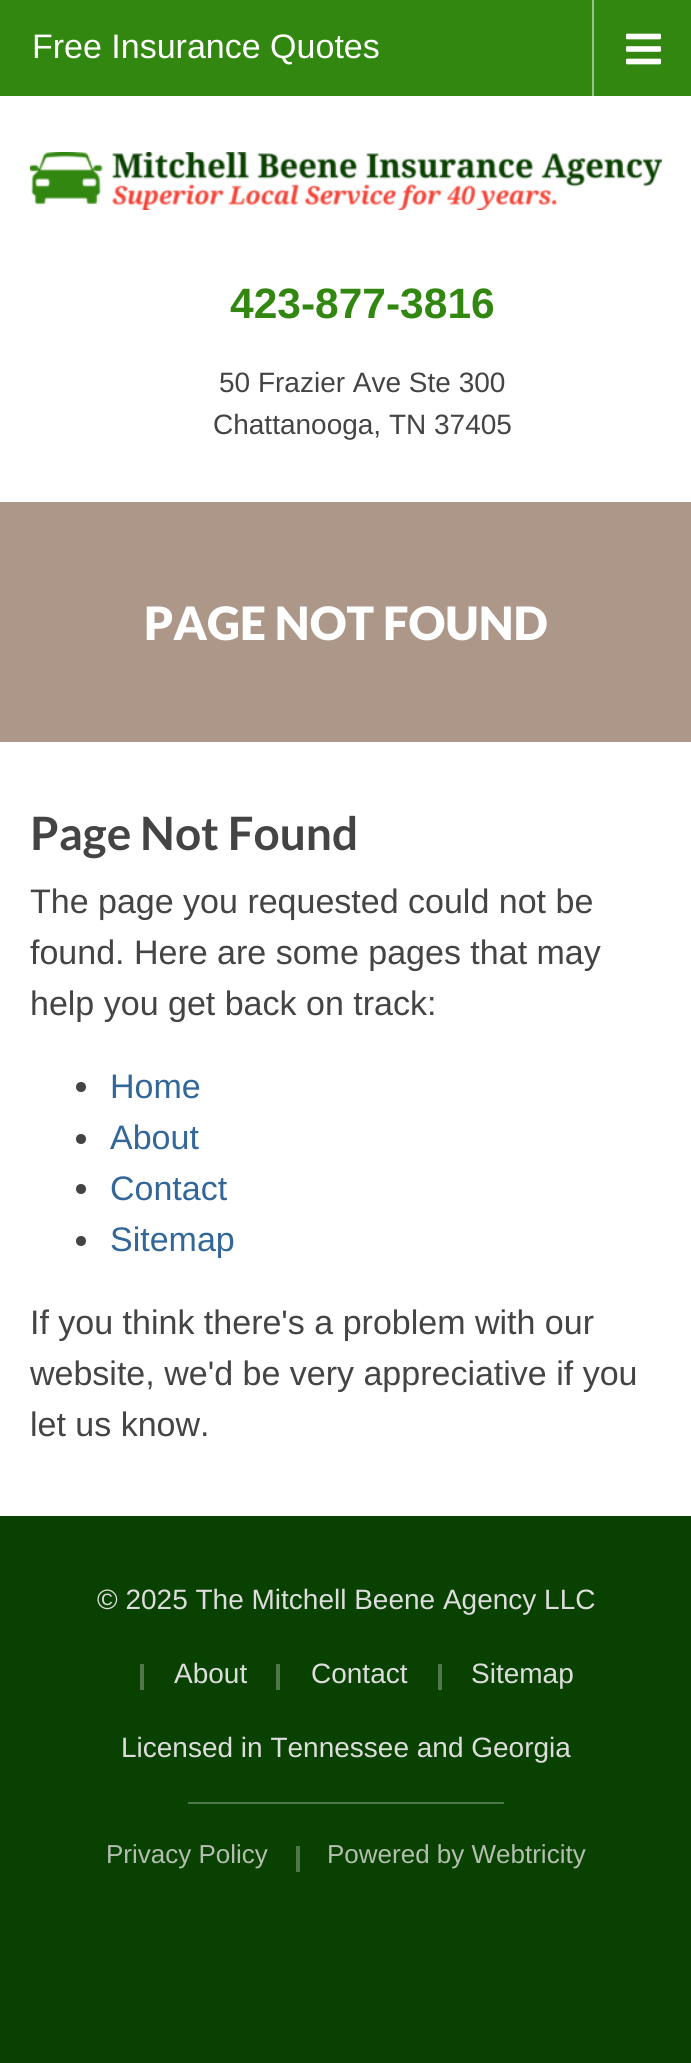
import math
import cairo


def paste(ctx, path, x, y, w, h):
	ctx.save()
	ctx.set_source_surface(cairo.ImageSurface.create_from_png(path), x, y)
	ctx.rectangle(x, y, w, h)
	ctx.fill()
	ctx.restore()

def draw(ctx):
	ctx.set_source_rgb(0.039, 0.255, 0)
	ctx.paint()
	ctx.set_source_rgb(1, 1, 1)
	ctx.rectangle(0, 96, 691, 1420)
	ctx.fill()
	ctx.set_source_rgb(0.192, 0.529, 0.063)
	ctx.rectangle(0, 0, 691, 96)
	ctx.fill()
	ctx.set_source_rgb(0.596, 0.765, 0.533)
	ctx.rectangle(592, 0, 2, 96)
	ctx.fill()
	ctx.select_font_face('Liberation Sans')
	ctx.set_font_size(34)
	ctx.set_source_rgb(1, 1, 1)
	ctx.move_to(32, 58)
	ctx.show_text('Free Insurance Quotes')
	paste(ctx, 'media/1.png', 626, 33, 35, 32)
	paste(ctx, 'media/2.png', 30, 152, 632, 58)
	ctx.select_font_face('Liberation Sans', cairo.FONT_SLANT_NORMAL, cairo.FONT_WEIGHT_BOLD)
	ctx.set_font_size(42.5)
	ctx.set_source_rgb(0.192, 0.529, 0.063)
	ctx.move_to(230, 318)
	ctx.show_text('423-877-3816')
	ctx.select_font_face('Liberation Sans')
	ctx.set_font_size(28)
	ctx.set_source_rgb(0.267, 0.267, 0.267)
	ctx.move_to(219, 392)
	ctx.show_text('50 Frazier Ave Ste 300')
	ctx.move_to(213, 434)
	ctx.show_text('Chattanooga, TN 37405')
	ctx.set_source_rgb(0.675, 0.592, 0.537)
	ctx.rectangle(0, 502, 691, 240)
	ctx.fill()
	ctx.select_font_face('Lato Black')
	ctx.set_font_size(46)
	ctx.set_source_rgb(1, 1, 1)
	ctx.move_to(144, 640)
	ctx.show_text('PAGE NOT FOUND')
	ctx.select_font_face('Lato', cairo.FONT_SLANT_NORMAL, cairo.FONT_WEIGHT_BOLD)
	ctx.set_source_rgb(0.267, 0.267, 0.267)
	ctx.move_to(30, 850)
	ctx.show_text('Page Not Found')
	ctx.select_font_face('Liberation Sans')
	ctx.set_font_size(34)
	for x, y, s in [
		(30, 913, 'The page you requested could not be'),
		(30, 964, 'found. Here are some pages that may'),
		(30, 1015, 'help you get back on track:'),
	]:
		ctx.move_to(x, y)
		ctx.show_text(s)
	ctx.new_path()
	ctx.arc(81, 1087, 5, 0, 2 * math.pi)
	ctx.fill()
	ctx.set_source_rgb(0.2, 0.4, 0.6)
	ctx.move_to(110, 1098)
	ctx.show_text('Home')
	ctx.set_source_rgb(0.267, 0.267, 0.267)
	ctx.new_path()
	ctx.arc(81, 1139, 5, 0, 2 * math.pi)
	ctx.fill()
	ctx.set_source_rgb(0.2, 0.4, 0.6)
	ctx.move_to(110, 1149)
	ctx.show_text('About')
	ctx.set_source_rgb(0.267, 0.267, 0.267)
	ctx.new_path()
	ctx.arc(81, 1189, 5, 0, 2 * math.pi)
	ctx.fill()
	ctx.set_source_rgb(0.2, 0.4, 0.6)
	ctx.move_to(110, 1200)
	ctx.show_text('Contact')
	ctx.set_source_rgb(0.267, 0.267, 0.267)
	ctx.new_path()
	ctx.arc(81, 1241, 5, 0, 2 * math.pi)
	ctx.fill()
	ctx.set_source_rgb(0.2, 0.4, 0.6)
	ctx.move_to(110, 1251)
	ctx.show_text('Sitemap')
	ctx.set_source_rgb(0.267, 0.267, 0.267)
	for x, y, s in [
		(30, 1334, 'If you think there\'s a problem with our'),
		(30, 1385, 'website, we\'d be very appreciative if you'),
		(30, 1436, 'let us know.'),
	]:
		ctx.move_to(x, y)
		ctx.show_text(s)
	ctx.set_font_size(28)
	ctx.set_source_rgb(0.867, 0.867, 0.867)
	ctx.move_to(97, 1609)
	ctx.show_text('© 2025 The Mitchell Beene Agency LLC')
	ctx.set_source_rgb(0.322, 0.463, 0.294)
	ctx.rectangle(140, 1664, 4, 26)
	ctx.fill()
	ctx.set_source_rgb(0.867, 0.867, 0.867)
	ctx.move_to(174, 1683)
	ctx.show_text('About')
	ctx.set_source_rgb(0.322, 0.463, 0.294)
	ctx.rectangle(276, 1664, 4, 26)
	ctx.fill()
	ctx.set_source_rgb(0.867, 0.867, 0.867)
	ctx.move_to(311, 1683)
	ctx.show_text('Contact')
	ctx.set_source_rgb(0.322, 0.463, 0.294)
	ctx.rectangle(438, 1664, 4, 26)
	ctx.fill()
	ctx.set_source_rgb(0.867, 0.867, 0.867)
	ctx.move_to(471, 1683)
	ctx.show_text('Sitemap')
	ctx.move_to(121, 1757)
	ctx.show_text('Licensed in Tennessee and Georgia')
	ctx.set_source_rgb(0.322, 0.463, 0.294)
	ctx.rectangle(188, 1802, 316, 2)
	ctx.fill()
	ctx.set_font_size(26)
	ctx.set_source_rgb(0.702, 0.745, 0.694)
	ctx.move_to(106, 1863)
	ctx.show_text('Privacy Policy')
	ctx.set_source_rgb(0.322, 0.463, 0.294)
	ctx.rectangle(296, 1846, 4, 26)
	ctx.fill()
	ctx.set_source_rgb(0.702, 0.745, 0.694)
	ctx.move_to(327, 1863)
	ctx.show_text('Powered by Webtricity')


surface = cairo.ImageSurface(cairo.FORMAT_RGB24, 691, 2063)
ctx = cairo.Context(surface)
options = cairo.FontOptions()
options.set_hint_metrics(cairo.HINT_METRICS_OFF)
options.set_hint_style(cairo.HINT_STYLE_NONE)
ctx.set_font_options(options)
ctx.set_miter_limit(4)
draw(ctx)
surface.write_to_png('image.png')
